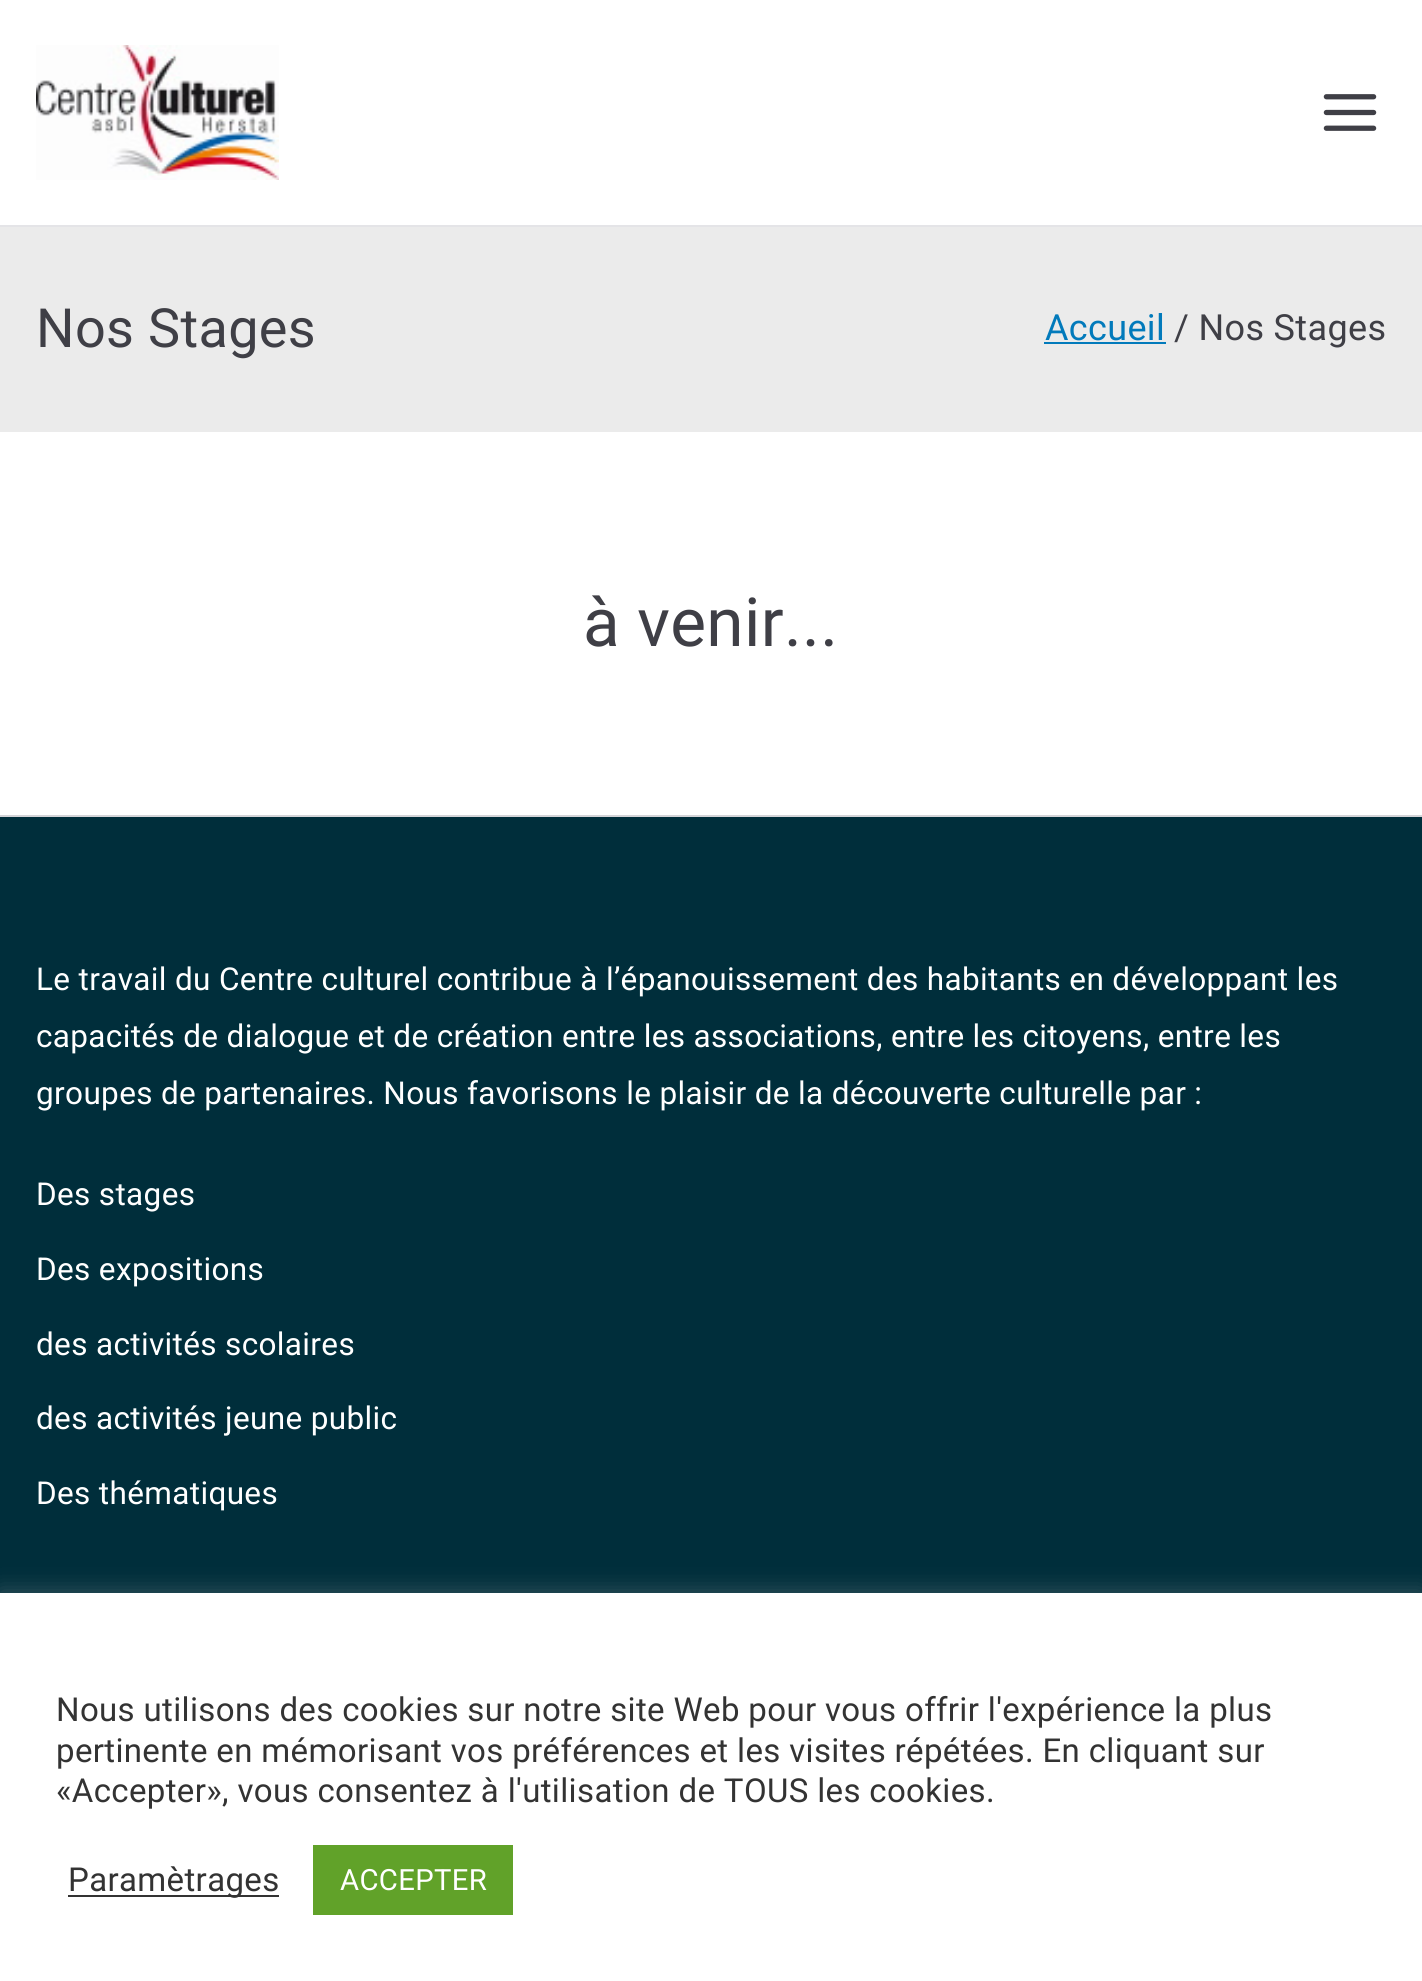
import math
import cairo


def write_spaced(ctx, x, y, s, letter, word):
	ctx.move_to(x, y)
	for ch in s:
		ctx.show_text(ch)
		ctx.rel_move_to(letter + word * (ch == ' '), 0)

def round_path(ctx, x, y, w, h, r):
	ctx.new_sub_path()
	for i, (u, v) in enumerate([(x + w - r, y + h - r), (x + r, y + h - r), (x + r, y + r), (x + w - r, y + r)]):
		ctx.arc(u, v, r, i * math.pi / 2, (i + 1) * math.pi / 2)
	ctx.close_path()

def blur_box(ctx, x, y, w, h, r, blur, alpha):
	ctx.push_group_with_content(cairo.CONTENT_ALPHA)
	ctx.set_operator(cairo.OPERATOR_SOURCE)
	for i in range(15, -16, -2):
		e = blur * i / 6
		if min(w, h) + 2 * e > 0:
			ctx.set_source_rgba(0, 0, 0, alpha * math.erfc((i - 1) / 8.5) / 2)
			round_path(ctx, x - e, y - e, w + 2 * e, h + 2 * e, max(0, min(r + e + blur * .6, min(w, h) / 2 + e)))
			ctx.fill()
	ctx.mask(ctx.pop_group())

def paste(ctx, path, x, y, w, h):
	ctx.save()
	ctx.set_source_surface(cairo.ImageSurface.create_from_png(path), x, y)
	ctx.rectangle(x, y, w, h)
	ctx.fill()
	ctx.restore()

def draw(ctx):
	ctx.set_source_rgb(0.894, 0.894, 0.906)
	ctx.paint()
	ctx.set_source_rgb(1, 1, 1)
	ctx.rectangle(0, 0, 1422, 225)
	ctx.fill()
	paste(ctx, 'media/1.png', 36, 45, 243, 135)
	paste(ctx, 'media/2.png', 1323, 94, 54, 37)
	ctx.set_source_rgb(0.918, 0.918, 0.918)
	ctx.rectangle(0, 227, 1422, 205)
	ctx.fill()
	ctx.select_font_face('Roboto')
	ctx.set_font_size(54)
	ctx.set_source_rgb(0.247, 0.247, 0.275)
	write_spaced(ctx, 36, 347, 'Nos Stages', 0.35, 0)
	ctx.set_font_size(36)
	ctx.set_source_rgb(0.008, 0.478, 0.733)
	write_spaced(ctx, 1045, 340, 'Accueil', 0.35, 0)
	ctx.rectangle(1044, 342, 122, 2)
	ctx.fill()
	ctx.set_source_rgb(0.247, 0.247, 0.275)
	write_spaced(ctx, 1174, 340, '/ Nos Stages', 0.35, 0)
	ctx.set_source_rgb(1, 1, 1)
	ctx.rectangle(0, 432, 1422, 383)
	ctx.fill()
	ctx.set_font_size(67.5)
	ctx.set_source_rgb(0.247, 0.247, 0.275)
	write_spaced(ctx, 583, 646, 'à venir...', 0.35, 0)
	ctx.set_source_rgb(0, 0.18, 0.231)
	ctx.rectangle(0, 817, 1422, 776)
	ctx.fill()
	ctx.set_source_rgb(0.831, 0.831, 0.847)
	ctx.rectangle(0, 815, 1422, 2)
	ctx.fill()
	ctx.set_font_size(31.5)
	ctx.set_source_rgb(1, 1, 1)
	for x, y, s in [
		(36, 990, 'Le travail du Centre culturel contribue à l’épanouissement des habitants en développant les'),
		(36, 1047, 'capacités de dialogue et de création entre les associations, entre les citoyens, entre les'),
		(36, 1104, 'groupes de partenaires. Nous favorisons le plaisir de la découverte culturelle par :'),
		(36, 1205, 'Des stages'),
		(36, 1280, 'Des expositions'),
		(36, 1355, 'des activités scolaires'),
		(36, 1429, 'des activités jeune public'),
		(36, 1504, 'Des thématiques'),
	]:
		write_spaced(ctx, x, y, s, 0.35, 0)
	ctx.set_source_rgb(0.675, 0.671, 0.671)
	blur_box(ctx, 0, 1591, 1422, 389, 0, 11, 0.3)
	ctx.set_source_rgb(1, 1, 1)
	ctx.rectangle(0, 1593, 1422, 388)
	ctx.fill()
	ctx.set_font_size(33)
	ctx.set_source_rgb(0.2, 0.2, 0.2)
	for x, y, s in [
		(56, 1721, 'Nous utilisons des cookies sur notre site Web pour vous offrir l\'expérience la plus'),
		(56, 1762, 'pertinente en mémorisant vos préférences et les visites répétées. En cliquant sur'),
		(56, 1802, '«Accepter», vous consentez à l\'utilisation de TOUS les cookies.'),
	]:
		write_spaced(ctx, x, y, s, 0.35, 0)
	ctx.rectangle(68, 1895, 211, 2)
	ctx.fill()
	write_spaced(ctx, 68, 1891, 'Paramètrages', 0.35, 0)
	ctx.set_source_rgb(0.38, 0.635, 0.161)
	ctx.rectangle(313, 1845, 200, 70)
	ctx.fill()
	ctx.set_font_size(29.25)
	ctx.set_source_rgb(1, 1, 1)
	write_spaced(ctx, 340, 1890, 'ACCEPTER', 0.35, 0)


surface = cairo.ImageSurface(cairo.FORMAT_RGB24, 1422, 1981)
ctx = cairo.Context(surface)
options = cairo.FontOptions()
options.set_hint_metrics(cairo.HINT_METRICS_OFF)
options.set_hint_style(cairo.HINT_STYLE_NONE)
ctx.set_font_options(options)
ctx.set_miter_limit(4)
draw(ctx)
surface.write_to_png('image.png')
